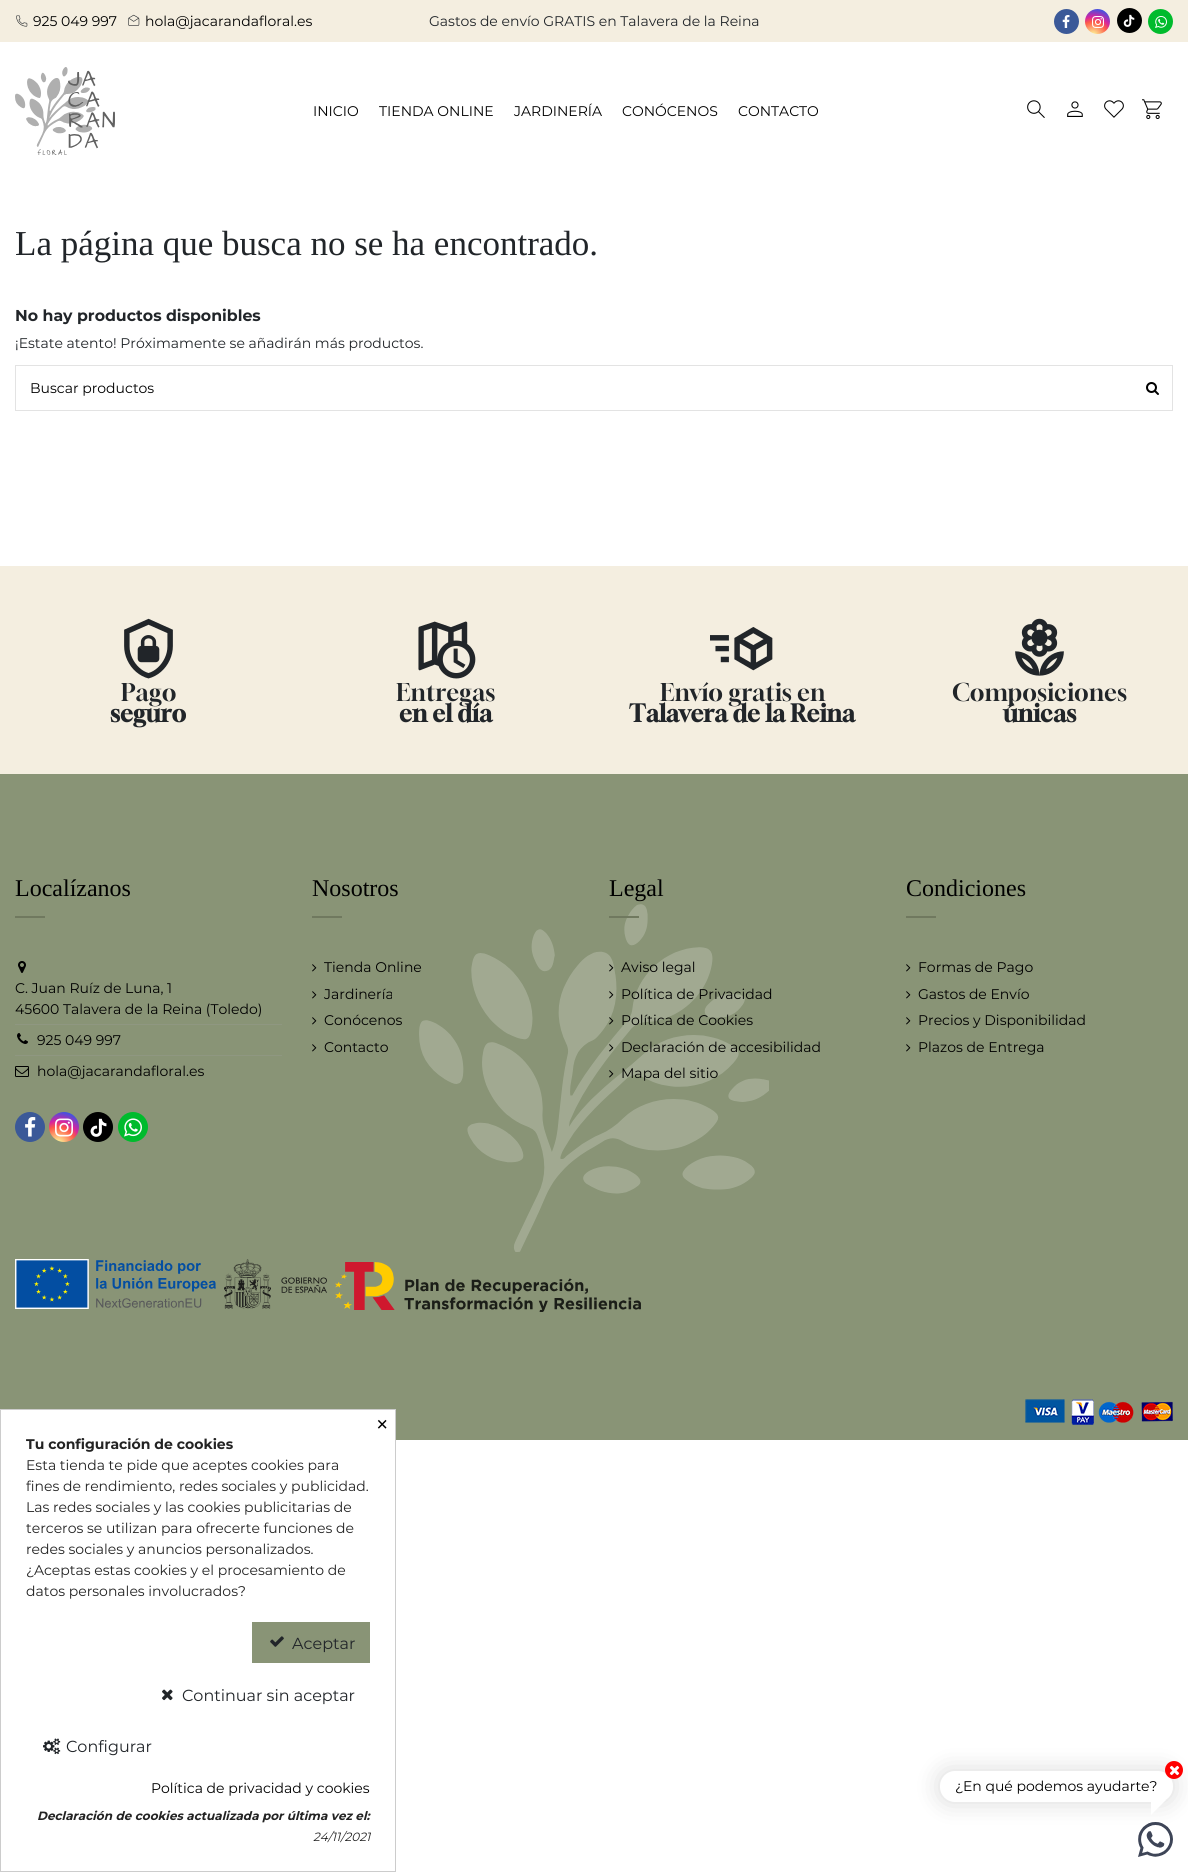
import math
import cairo


def round_path(ctx, x, y, w, h, r):
	ctx.new_sub_path()
	for i, (u, v) in enumerate([(x + w - r, y + h - r), (x + r, y + h - r), (x + r, y + r), (x + w - r, y + r)]):
		ctx.arc(u, v, r, i * math.pi / 2, (i + 1) * math.pi / 2)
	ctx.close_path()

def blur_box(ctx, x, y, w, h, r, blur, alpha):
	ctx.push_group_with_content(cairo.CONTENT_ALPHA)
	ctx.set_operator(cairo.OPERATOR_SOURCE)
	for i in range(15, -16, -2):
		e = blur * i / 6
		if min(w, h) + 2 * e > 0:
			ctx.set_source_rgba(0, 0, 0, alpha * math.erfc((i - 1) / 8.5) / 2)
			round_path(ctx, x - e, y - e, w + 2 * e, h + 2 * e, max(0, min(r + e + blur * .6, min(w, h) / 2 + e)))
			ctx.fill()
	ctx.mask(ctx.pop_group())

def paste(ctx, path, x, y, w, h):
	ctx.save()
	ctx.set_source_surface(cairo.ImageSurface.create_from_png(path), x, y)
	ctx.rectangle(x, y, w, h)
	ctx.fill()
	ctx.restore()

def draw(ctx):
	ctx.set_source_rgb(1, 1, 1)
	ctx.paint()
	ctx.set_source_rgb(0.957, 0.933, 0.878)
	ctx.rectangle(0, 0, 1188, 42)
	ctx.fill()
	paste(ctx, 'media/1.png', 16, 15, 12, 12)
	ctx.select_font_face('Montserrat')
	ctx.set_font_size(14)
	ctx.set_source_rgb(0, 0, 0)
	ctx.move_to(33, 26)
	ctx.show_text('925 049 997')
	paste(ctx, 'media/2.png', 128, 14, 12, 12)
	ctx.move_to(145, 26)
	ctx.show_text('hola@jacarandafloral.es')
	ctx.set_source_rgb(0.129, 0.145, 0.161)
	ctx.move_to(429, 26)
	ctx.show_text('Gastos de envío GRATIS en Talavera de la Reina')
	ctx.set_source_rgb(0.231, 0.349, 0.596)
	ctx.new_path()
	ctx.arc(1066.5, 21.5, 12.5, 0, 2 * math.pi)
	ctx.fill()
	paste(ctx, 'media/3.png', 1062, 15, 8, 13)
	gradient = cairo.RadialGradient(1093, 36, 0, 1093, 36, 32)
	gradient.add_color_stop_rgba(0, 0.992, 0.957, 0.592, 1)
	gradient.add_color_stop_rgba(0.05, 0.992, 0.957, 0.592, 1)
	gradient.add_color_stop_rgba(0.45, 0.992, 0.349, 0.286, 1)
	gradient.add_color_stop_rgba(0.6, 0.839, 0.141, 0.624, 1)
	gradient.add_color_stop_rgba(0.9, 0.157, 0.353, 0.922, 1)
	ctx.set_source(gradient)
	ctx.arc(1097.5, 21.5, 12.5, 0, 2 * math.pi)
	ctx.fill()
	paste(ctx, 'media/4.png', 1092, 16, 12, 12)
	ctx.set_source_rgb(0, 0, 0)
	ctx.arc(1129.5, 20.5, 12.5, 0, 2 * math.pi)
	ctx.fill()
	paste(ctx, 'media/5.png', 1123, 14, 12, 13)
	ctx.set_source_rgb(0, 0.733, 0.176)
	ctx.arc(1160.5, 21.5, 12.5, 0, 2 * math.pi)
	ctx.fill()
	paste(ctx, 'media/6.png', 1155, 16, 12, 12)
	paste(ctx, 'media/7.png', 15, 67, 100, 88)
	ctx.set_source_rgb(0, 0, 0)
	for x, y, s in [
		(313, 116, 'INICIO'),
		(379, 116, 'TIENDA ONLINE'),
		(514, 116, 'JARDINERÍA'),
		(622, 116, 'CONÓCENOS'),
		(738, 116, 'CONTACTO'),
	]:
		ctx.move_to(x, y)
		ctx.show_text(s)
	paste(ctx, 'media/8.png', 1027, 100, 18, 18)
	paste(ctx, 'media/9.png', 1067, 101, 16, 16)
	paste(ctx, 'media/10.png', 1104, 100, 20, 18)
	paste(ctx, 'media/11.png', 1142, 99, 20, 20)
	ctx.select_font_face('Liberation Serif')
	ctx.set_font_size(35)
	ctx.set_source_rgb(0.129, 0.145, 0.161)
	ctx.move_to(15, 255)
	ctx.show_text('La página que busca no se ha encontrado.')
	ctx.select_font_face('Montserrat', cairo.FONT_SLANT_NORMAL, cairo.FONT_WEIGHT_BOLD)
	ctx.set_font_size(15.75)
	ctx.move_to(15, 321)
	ctx.show_text('No hay productos disponibles')
	ctx.select_font_face('Montserrat')
	ctx.set_font_size(14)
	ctx.move_to(15, 348)
	ctx.show_text('¡Estate atento! Próximamente se añadirán más productos.')
	ctx.rectangle(15.5, 365.5, 1157, 45)
	ctx.set_source_rgb(0.89, 0.89, 0.89)
	ctx.set_line_width(1)
	ctx.stroke()
	ctx.set_source_rgb(0, 0, 0)
	ctx.move_to(30, 393)
	ctx.show_text('Buscar productos')
	paste(ctx, 'media/12.png', 1146, 382, 13, 13)
	ctx.set_source_rgb(0.537, 0.58, 0.463)
	ctx.rectangle(0, 774, 1188, 666)
	ctx.fill()
	ctx.set_source_rgb(0.957, 0.933, 0.878)
	ctx.rectangle(0, 566, 1188, 208)
	ctx.fill()
	paste(ctx, 'media/13.png', 124, 618, 49, 61)
	ctx.select_font_face('Gloock')
	ctx.set_font_size(24)
	ctx.set_source_rgb(0.129, 0.145, 0.161)
	ctx.move_to(121, 701)
	ctx.show_text('Pago')
	ctx.select_font_face('Gloock', cairo.FONT_SLANT_NORMAL, cairo.FONT_WEIGHT_BOLD)
	ctx.move_to(110, 722)
	ctx.show_text('seguro')
	paste(ctx, 'media/14.png', 418, 621, 58, 58)
	ctx.select_font_face('Gloock')
	ctx.move_to(396, 701)
	ctx.show_text('Entregas')
	ctx.select_font_face('Gloock', cairo.FONT_SLANT_NORMAL, cairo.FONT_WEIGHT_BOLD)
	ctx.move_to(399, 722)
	ctx.show_text('en el día')
	paste(ctx, 'media/15.png', 710, 627, 63, 44)
	ctx.select_font_face('Gloock')
	ctx.move_to(660, 701)
	ctx.show_text('Envío gratis en')
	ctx.select_font_face('Gloock', cairo.FONT_SLANT_NORMAL, cairo.FONT_WEIGHT_BOLD)
	ctx.move_to(629, 722)
	ctx.show_text('Talavera de la Reina')
	paste(ctx, 'media/16.png', 1015, 618, 49, 58)
	ctx.select_font_face('Gloock')
	ctx.move_to(952, 701)
	ctx.show_text('Composiciones')
	ctx.select_font_face('Gloock', cairo.FONT_SLANT_NORMAL, cairo.FONT_WEIGHT_BOLD)
	ctx.move_to(1003, 722)
	ctx.show_text('únicas')
	ctx.select_font_face('Liberation Serif')
	ctx.set_source_rgb(0, 0, 0)
	ctx.move_to(15, 896)
	ctx.show_text('Localízanos')
	ctx.set_source_rgb(0.439, 0.475, 0.373)
	ctx.rectangle(15, 916, 30, 2)
	ctx.fill()
	paste(ctx, 'media/17.png', 18, 961, 8, 12)
	ctx.select_font_face('Montserrat')
	ctx.set_font_size(14)
	ctx.set_source_rgb(0, 0, 0)
	ctx.move_to(15, 993)
	ctx.show_text('C. Juan Ruíz de Luna, 1')
	ctx.move_to(15, 1014)
	ctx.show_text('45600 Talavera de la Reina (Toledo)')
	ctx.set_source_rgb(0.561, 0.592, 0.506)
	ctx.rectangle(15, 1024, 267, 1)
	ctx.fill()
	paste(ctx, 'media/18.png', 17, 1033, 11, 11)
	ctx.set_source_rgb(0, 0, 0)
	ctx.move_to(37, 1045)
	ctx.show_text('925 049 997')
	ctx.set_source_rgb(0.561, 0.592, 0.506)
	ctx.rectangle(15, 1055, 267, 1)
	ctx.fill()
	paste(ctx, 'media/19.png', 15, 1066, 14, 11)
	ctx.set_source_rgb(0, 0, 0)
	ctx.move_to(37, 1076)
	ctx.show_text('hola@jacarandafloral.es')
	ctx.set_source_rgb(0.231, 0.349, 0.596)
	ctx.new_path()
	ctx.arc(30, 1127, 15, 0, 2 * math.pi)
	ctx.fill()
	paste(ctx, 'media/20.png', 25, 1117, 11, 20)
	gradient = cairo.RadialGradient(58, 1144, 0, 58, 1144, 38)
	gradient.add_color_stop_rgba(0, 0.992, 0.957, 0.592, 1)
	gradient.add_color_stop_rgba(0.05, 0.992, 0.957, 0.592, 1)
	gradient.add_color_stop_rgba(0.45, 0.992, 0.349, 0.286, 1)
	gradient.add_color_stop_rgba(0.6, 0.839, 0.141, 0.624, 1)
	gradient.add_color_stop_rgba(0.9, 0.157, 0.353, 0.922, 1)
	ctx.set_source(gradient)
	ctx.arc(64, 1127, 15, 0, 2 * math.pi)
	ctx.fill()
	paste(ctx, 'media/21.png', 55, 1118, 18, 19)
	ctx.set_source_rgb(0, 0, 0)
	ctx.arc(98, 1127, 15, 0, 2 * math.pi)
	ctx.fill()
	paste(ctx, 'media/22.png', 90, 1118, 17, 19)
	ctx.set_source_rgb(0, 0.733, 0.176)
	ctx.arc(133, 1127, 15, 0, 2 * math.pi)
	ctx.fill()
	paste(ctx, 'media/23.png', 124, 1118, 18, 19)
	ctx.select_font_face('Liberation Serif')
	ctx.set_font_size(24)
	ctx.set_source_rgb(0, 0, 0)
	ctx.move_to(312, 896)
	ctx.show_text('Nosotros')
	ctx.set_source_rgb(0.439, 0.475, 0.373)
	ctx.rectangle(312, 916, 30, 2)
	ctx.fill()
	paste(ctx, 'media/24.png', 312, 964, 5, 8)
	paste(ctx, 'media/34.png', 419, 904, 350, 348)
	ctx.select_font_face('Montserrat')
	ctx.set_font_size(14)
	ctx.set_source_rgb(0, 0, 0)
	ctx.move_to(324, 972)
	ctx.show_text('Tienda Online')
	paste(ctx, 'media/24.png', 312, 991, 5, 8)
	ctx.move_to(324, 999)
	ctx.show_text('Jardinería')
	paste(ctx, 'media/24.png', 312, 1017, 5, 8)
	ctx.move_to(324, 1025)
	ctx.show_text('Conócenos')
	paste(ctx, 'media/24.png', 312, 1044, 5, 8)
	ctx.move_to(324, 1052)
	ctx.show_text('Contacto')
	ctx.select_font_face('Liberation Serif')
	ctx.set_font_size(24)
	ctx.move_to(609, 896)
	ctx.show_text('Legal')
	ctx.set_source_rgb(0.439, 0.475, 0.373)
	ctx.rectangle(609, 916, 30, 2)
	ctx.fill()
	paste(ctx, 'media/25.png', 609, 964, 5, 8)
	ctx.select_font_face('Montserrat')
	ctx.set_font_size(14)
	ctx.set_source_rgb(0, 0, 0)
	ctx.move_to(621, 972)
	ctx.show_text('Aviso legal')
	paste(ctx, 'media/26.png', 609, 991, 5, 8)
	ctx.move_to(621, 999)
	ctx.show_text('Política de Privacidad')
	paste(ctx, 'media/27.png', 609, 1017, 5, 8)
	ctx.move_to(621, 1025)
	ctx.show_text('Política de Cookies')
	paste(ctx, 'media/28.png', 609, 1044, 5, 8)
	ctx.move_to(621, 1052)
	ctx.show_text('Declaración de accesibilidad')
	paste(ctx, 'media/24.png', 609, 1070, 5, 8)
	ctx.move_to(621, 1078)
	ctx.show_text('Mapa del sitio')
	ctx.select_font_face('Liberation Serif')
	ctx.set_font_size(24)
	ctx.move_to(906, 896)
	ctx.show_text('Condiciones')
	ctx.set_source_rgb(0.439, 0.475, 0.373)
	ctx.rectangle(906, 916, 30, 2)
	ctx.fill()
	paste(ctx, 'media/24.png', 906, 964, 5, 8)
	ctx.select_font_face('Montserrat')
	ctx.set_font_size(14)
	ctx.set_source_rgb(0, 0, 0)
	ctx.move_to(918, 972)
	ctx.show_text('Formas de Pago')
	paste(ctx, 'media/24.png', 906, 991, 5, 8)
	ctx.move_to(918, 999)
	ctx.show_text('Gastos de Envío')
	paste(ctx, 'media/24.png', 906, 1017, 5, 8)
	ctx.move_to(918, 1025)
	ctx.show_text('Precios y Disponibilidad')
	paste(ctx, 'media/24.png', 906, 1044, 5, 8)
	ctx.move_to(918, 1052)
	ctx.show_text('Plazos de Entrega')
	ctx.set_source_rgb(0, 0, 0)
	blur_box(ctx, 940, 1771, 233, 31, 15, 12.5, 0.15)
	ctx.set_source_rgb(1, 1, 1)
	round_path(ctx, 940, 1771, 233, 31, 15)
	ctx.fill()
	ctx.set_source_rgb(1, 0, 0)
	ctx.arc(1174, 1770, 9, 0, 2 * math.pi)
	ctx.fill()
	paste(ctx, 'media/29.png', 1169, 1765, 11, 11)
	ctx.set_source_rgb(0, 0, 0)
	ctx.move_to(955, 1791)
	ctx.show_text('¿En qué podemos ayudarte?')
	ctx.set_source_rgb(1, 1, 1)
	ctx.new_path()
	ctx.move_to(1151, 1800)
	ctx.line_to(1166, 1800)
	ctx.line_to(1151, 1815)
	ctx.close_path()
	ctx.fill()
	paste(ctx, 'media/30.png', 1138, 1822, 35, 35)
	paste(ctx, 'media/31.png', 15, 1259, 201, 50)
	paste(ctx, 'media/32.png', 224, 1259, 103, 50)
	paste(ctx, 'media/33.png', 335, 1262, 306, 50)
	paste(ctx, 'media/35.png', 1025, 1399, 148, 26)
	ctx.rectangle(1, 1410, 394, 30)
	ctx.fill()
	ctx.rectangle(0.5, 1409.5, 395, 462)
	ctx.set_source_rgb(0.8, 0.8, 0.8)
	ctx.stroke()
	ctx.set_font_size(25)
	ctx.set_source_rgb(0, 0, 0)
	ctx.move_to(375, 1433)
	ctx.show_text('×')
	ctx.select_font_face('Montserrat', cairo.FONT_SLANT_NORMAL, cairo.FONT_WEIGHT_BOLD)
	ctx.set_font_size(14)
	ctx.set_source_rgb(0.137, 0.137, 0.137)
	ctx.move_to(26, 1449)
	ctx.show_text('Tu configuración de cookies')
	ctx.select_font_face('Montserrat')
	for x, y, s in [
		(26, 1470, 'Esta tienda te pide que aceptes cookies para'),
		(26, 1491, 'fines de rendimiento, redes sociales y publicidad.'),
		(26, 1512, 'Las redes sociales y las cookies publicitarias de'),
		(26, 1533, 'terceros se utilizan para ofrecerte funciones de'),
		(26, 1554, 'redes sociales y anuncios personalizados.'),
		(26, 1575, '¿Aceptas estas cookies y el procesamiento de'),
		(26, 1596, 'datos personales involucrados?'),
	]:
		ctx.move_to(x, y)
		ctx.show_text(s)
	ctx.set_source_rgb(0.537, 0.58, 0.463)
	ctx.rectangle(252, 1622, 118, 41)
	ctx.fill()
	paste(ctx, 'media/36.png', 270, 1636, 14, 11)
	ctx.set_font_size(16)
	ctx.set_source_rgb(0.129, 0.145, 0.161)
	ctx.move_to(292, 1649)
	ctx.show_text('Aceptar')
	paste(ctx, 'media/37.png', 162, 1689, 11, 12)
	ctx.move_to(182, 1701)
	ctx.show_text('Continuar sin aceptar')
	paste(ctx, 'media/38.png', 43, 1738, 18, 17)
	ctx.move_to(66, 1752)
	ctx.show_text('Configurar')
	ctx.set_font_size(14)
	ctx.set_source_rgb(0, 0, 0)
	ctx.move_to(151, 1793)
	ctx.show_text('Política de privacidad y cookies')
	ctx.select_font_face('Montserrat', cairo.FONT_SLANT_ITALIC, cairo.FONT_WEIGHT_BOLD)
	ctx.set_font_size(12)
	ctx.set_source_rgb(0.137, 0.137, 0.137)
	ctx.move_to(37, 1820)
	ctx.show_text('Declaración de cookies actualizada por última vez el:')
	ctx.select_font_face('Montserrat', cairo.FONT_SLANT_ITALIC)
	ctx.move_to(313, 1841)
	ctx.show_text('24/11/2021')


surface = cairo.ImageSurface(cairo.FORMAT_RGB24, 1188, 1872)
ctx = cairo.Context(surface)
options = cairo.FontOptions()
options.set_hint_metrics(cairo.HINT_METRICS_OFF)
options.set_hint_style(cairo.HINT_STYLE_NONE)
ctx.set_font_options(options)
ctx.set_miter_limit(4)
draw(ctx)
surface.write_to_png('image.png')
